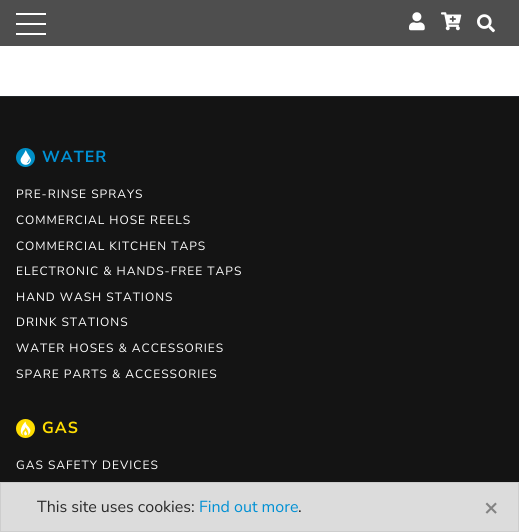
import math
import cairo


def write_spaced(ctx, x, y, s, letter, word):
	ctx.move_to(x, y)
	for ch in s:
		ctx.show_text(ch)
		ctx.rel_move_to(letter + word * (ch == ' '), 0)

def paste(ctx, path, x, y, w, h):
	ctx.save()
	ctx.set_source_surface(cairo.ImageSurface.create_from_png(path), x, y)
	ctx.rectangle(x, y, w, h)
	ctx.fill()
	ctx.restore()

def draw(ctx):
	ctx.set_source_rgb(1, 1, 1)
	ctx.paint()
	ctx.set_source_rgb(0.306, 0.306, 0.306)
	ctx.rectangle(0, 0, 519, 46)
	ctx.fill()
	ctx.set_source_rgb(1, 1, 1)
	ctx.rectangle(16, 23, 30, 2)
	ctx.rectangle(16, 13, 30, 2)
	ctx.rectangle(16, 33, 30, 2)
	ctx.fill()
	paste(ctx, 'media/1.png', 409, 12, 16, 19)
	paste(ctx, 'media/2.png', 441, 12, 21, 19)
	paste(ctx, 'media/3.png', 477, 14, 18, 19)
	ctx.set_source_rgb(0.082, 0.082, 0.082)
	ctx.rectangle(0, 97, 519, 385)
	ctx.fill()
	ctx.set_source_rgb(0.129, 0.145, 0.161)
	ctx.rectangle(0, 96, 519, 1)
	ctx.fill()
	paste(ctx, 'media/4.png', 16, 148, 19, 19)
	ctx.select_font_face('Nunito Sans', cairo.FONT_SLANT_NORMAL, cairo.FONT_WEIGHT_BOLD)
	ctx.set_font_size(16)
	ctx.set_source_rgb(0, 0.565, 0.831)
	write_spaced(ctx, 42, 162, 'WATER', 1, 0)
	ctx.select_font_face('Nunito Sans')
	ctx.set_font_size(12)
	ctx.set_source_rgb(1, 1, 1)
	for x, y, s in [
		(16, 198, 'PRE-RINSE SPRAYS'),
		(16, 224, 'COMMERCIAL HOSE REELS'),
		(16, 250, 'COMMERCIAL KITCHEN TAPS'),
		(16, 275, 'ELECTRONIC & HANDS-FREE TAPS'),
		(16, 301, 'HAND WASH STATIONS'),
		(16, 326, 'DRINK STATIONS'),
		(16, 352, 'WATER HOSES & ACCESSORIES'),
		(16, 378, 'SPARE PARTS & ACCESSORIES'),
	]:
		write_spaced(ctx, x, y, s, 1, 0)
	paste(ctx, 'media/5.png', 16, 419, 19, 19)
	ctx.select_font_face('Nunito Sans', cairo.FONT_SLANT_NORMAL, cairo.FONT_WEIGHT_BOLD)
	ctx.set_font_size(16)
	ctx.set_source_rgb(1, 0.867, 0.008)
	write_spaced(ctx, 42, 433, 'GAS', 1, 0)
	ctx.select_font_face('Nunito Sans')
	ctx.set_font_size(12)
	ctx.set_source_rgb(1, 1, 1)
	write_spaced(ctx, 16, 469, 'GAS SAFETY DEVICES', 1, 0)
	ctx.set_source_rgb(0.863, 0.863, 0.863)
	ctx.rectangle(0.5, 482.5, 518, 49)
	ctx.fill_preserve()
	ctx.set_source_rgb(0.804, 0.804, 0.804)
	ctx.set_line_width(1)
	ctx.stroke()
	ctx.set_font_size(16)
	ctx.set_source_rgb(0.161, 0.161, 0.161)
	ctx.move_to(37, 512)
	ctx.show_text('This site uses cookies:')
	ctx.set_source_rgb(0, 0.565, 0.831)
	ctx.move_to(199, 512)
	ctx.show_text('Find out more')
	ctx.set_source_rgb(0.161, 0.161, 0.161)
	ctx.move_to(298, 512)
	ctx.show_text('.')
	ctx.select_font_face('Nunito Sans', cairo.FONT_SLANT_NORMAL, cairo.FONT_WEIGHT_BOLD)
	ctx.set_font_size(24)
	ctx.set_source_rgb(0.514, 0.514, 0.514)
	ctx.move_to(484, 515)
	ctx.show_text('×')


surface = cairo.ImageSurface(cairo.FORMAT_RGB24, 519, 532)
ctx = cairo.Context(surface)
options = cairo.FontOptions()
options.set_hint_metrics(cairo.HINT_METRICS_OFF)
options.set_hint_style(cairo.HINT_STYLE_NONE)
ctx.set_font_options(options)
ctx.set_miter_limit(4)
draw(ctx)
surface.write_to_png('image.png')
